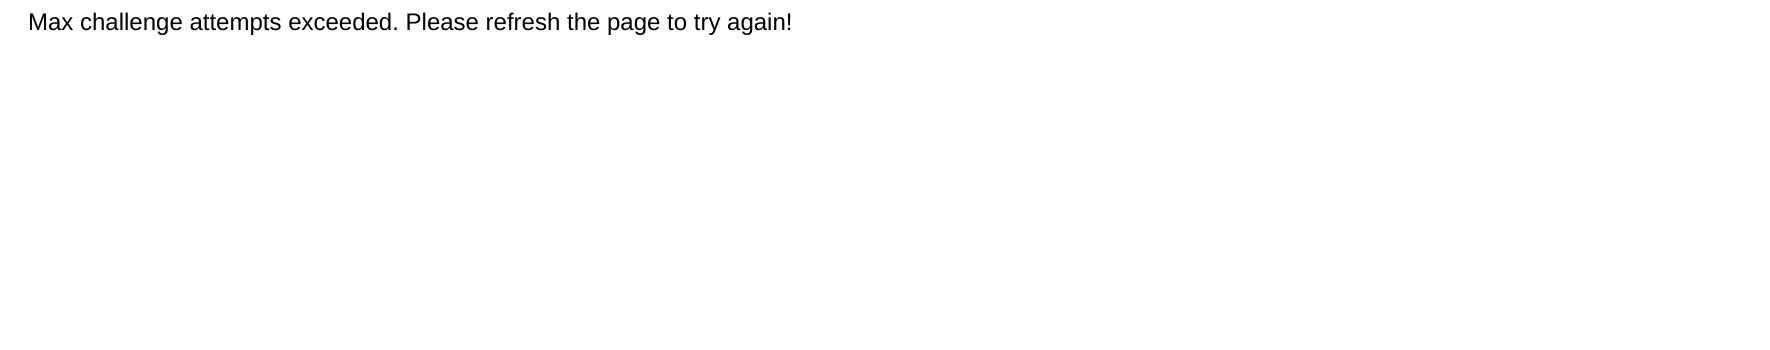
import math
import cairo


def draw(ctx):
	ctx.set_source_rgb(1, 1, 1)
	ctx.paint()
	ctx.select_font_face('Liberation Sans')
	ctx.set_font_size(24)
	ctx.set_source_rgb(0, 0, 0)
	ctx.move_to(28, 30)
	ctx.show_text('Max challenge attempts exceeded. Please refresh the page to try again!')


surface = cairo.ImageSurface(cairo.FORMAT_RGB24, 1770, 350)
ctx = cairo.Context(surface)
options = cairo.FontOptions()
options.set_hint_metrics(cairo.HINT_METRICS_OFF)
options.set_hint_style(cairo.HINT_STYLE_NONE)
ctx.set_font_options(options)
ctx.set_miter_limit(4)
draw(ctx)
surface.write_to_png('image.png')
